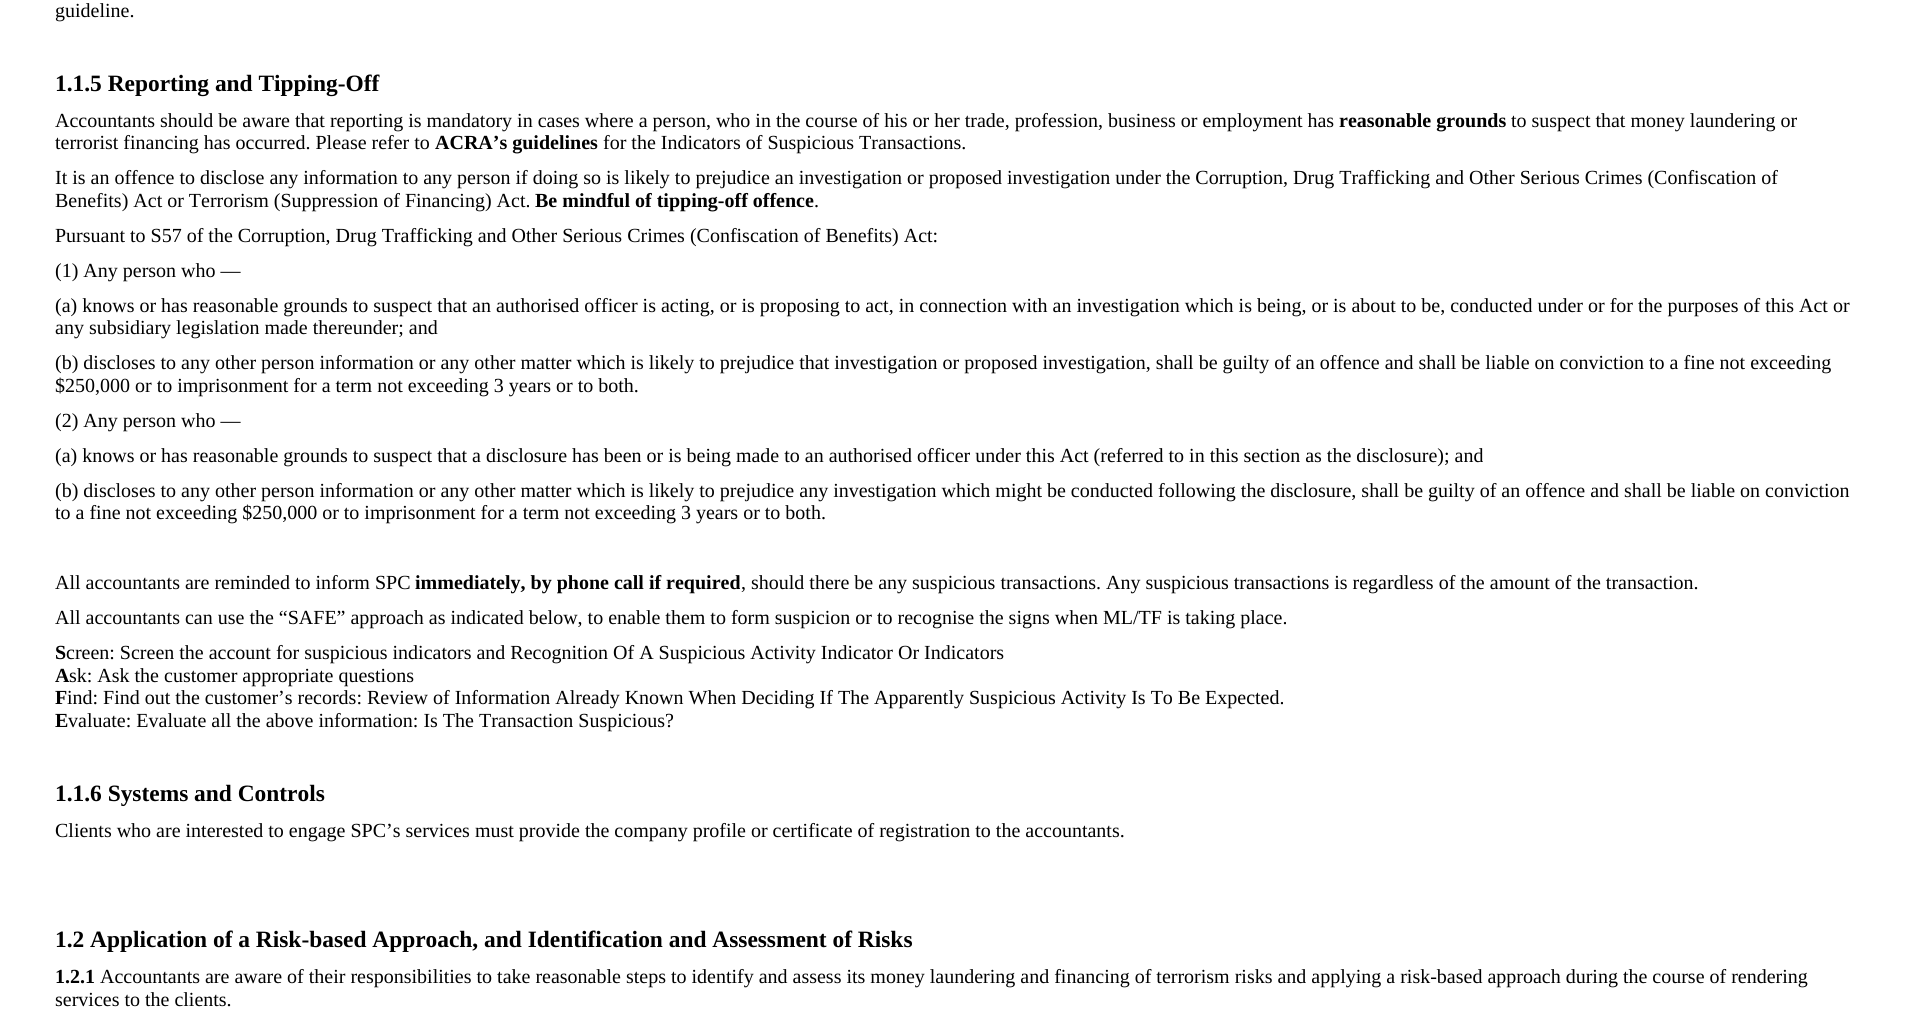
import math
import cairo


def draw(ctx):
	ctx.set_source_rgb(1, 1, 1)
	ctx.paint()
	ctx.select_font_face('Liberation Serif')
	ctx.set_font_size(20)
	ctx.set_source_rgb(0, 0, 0)
	ctx.move_to(55, 17)
	ctx.show_text('guideline.')
	ctx.select_font_face('Liberation Serif', cairo.FONT_SLANT_NORMAL, cairo.FONT_WEIGHT_BOLD)
	ctx.set_font_size(23.4)
	ctx.move_to(55, 91)
	ctx.show_text('1.1.5 Reporting and Tipping-Off')
	ctx.select_font_face('Liberation Serif')
	ctx.set_font_size(20)
	ctx.move_to(55, 127)
	ctx.show_text('Accountants should be aware that reporting is mandatory in cases where a person, who in the course of his or her trade, profession, business or employment has')
	ctx.select_font_face('Liberation Serif', cairo.FONT_SLANT_NORMAL, cairo.FONT_WEIGHT_BOLD)
	ctx.move_to(1339, 127)
	ctx.show_text('reasonable grounds')
	ctx.select_font_face('Liberation Serif')
	ctx.move_to(1511, 127)
	ctx.show_text('to suspect that money laundering or')
	ctx.move_to(55, 149)
	ctx.show_text('terrorist financing has occurred. Please refer to')
	ctx.select_font_face('Liberation Serif', cairo.FONT_SLANT_NORMAL, cairo.FONT_WEIGHT_BOLD)
	ctx.move_to(435, 149)
	ctx.show_text('ACRA’s guidelines')
	ctx.select_font_face('Liberation Serif')
	for x, y, s in [
		(603, 149, 'for the Indicators of Suspicious Transactions.'),
		(55, 184, 'It is an offence to disclose any information to any person if doing so is likely to prejudice an investigation or proposed investigation under the Corruption, Drug Trafficking and Other Serious Crimes (Confiscation of'),
		(55, 207, 'Benefits) Act or Terrorism (Suppression of Financing) Act.'),
	]:
		ctx.move_to(x, y)
		ctx.show_text(s)
	ctx.select_font_face('Liberation Serif', cairo.FONT_SLANT_NORMAL, cairo.FONT_WEIGHT_BOLD)
	ctx.move_to(535, 207)
	ctx.show_text('Be mindful of tipping-off offence')
	ctx.select_font_face('Liberation Serif')
	for x, y, s in [
		(814, 207, '.'),
		(55, 242, 'Pursuant to S57 of the Corruption, Drug Trafficking and Other Serious Crimes (Confiscation of Benefits) Act:'),
		(55, 277, '(1) Any person who —'),
		(55, 312, '(a) knows or has reasonable grounds to suspect that an authorised officer is acting, or is proposing to act, in connection with an investigation which is being, or is about to be, conducted under or for the purposes of this Act or'),
		(55, 334, 'any subsidiary legislation made thereunder; and'),
		(55, 369, '(b) discloses to any other person information or any other matter which is likely to prejudice that investigation or proposed investigation, shall be guilty of an offence and shall be liable on conviction to a fine not exceeding'),
		(55, 392, '$250,000 or to imprisonment for a term not exceeding 3 years or to both.'),
		(55, 427, '(2) Any person who —'),
		(55, 462, '(a) knows or has reasonable grounds to suspect that a disclosure has been or is being made to an authorised officer under this Act (referred to in this section as the disclosure); and'),
		(55, 497, '(b) discloses to any other person information or any other matter which is likely to prejudice any investigation which might be conducted following the disclosure, shall be guilty of an offence and shall be liable on conviction'),
		(55, 519, 'to a fine not exceeding $250,000 or to imprisonment for a term not exceeding 3 years or to both.'),
		(55, 589, 'All accountants are reminded to inform SPC'),
	]:
		ctx.move_to(x, y)
		ctx.show_text(s)
	ctx.select_font_face('Liberation Serif', cairo.FONT_SLANT_NORMAL, cairo.FONT_WEIGHT_BOLD)
	ctx.move_to(415, 589)
	ctx.show_text('immediately, by phone call if required')
	ctx.select_font_face('Liberation Serif')
	ctx.move_to(741, 589)
	ctx.show_text(', should there be any suspicious transactions. Any suspicious transactions is regardless of the amount of the transaction.')
	ctx.move_to(55, 624)
	ctx.show_text('All accountants can use the “SAFE” approach as indicated below, to enable them to form suspicion or to recognise the signs when ML/TF is taking place.')
	ctx.select_font_face('Liberation Serif', cairo.FONT_SLANT_NORMAL, cairo.FONT_WEIGHT_BOLD)
	ctx.move_to(55, 659)
	ctx.show_text('S')
	ctx.select_font_face('Liberation Serif')
	ctx.move_to(66, 659)
	ctx.show_text('creen: Screen the account for suspicious indicators and Recognition Of A Suspicious Activity Indicator Or Indicators')
	ctx.select_font_face('Liberation Serif', cairo.FONT_SLANT_NORMAL, cairo.FONT_WEIGHT_BOLD)
	ctx.move_to(55, 682)
	ctx.show_text('A')
	ctx.select_font_face('Liberation Serif')
	ctx.move_to(69, 682)
	ctx.show_text('sk: Ask the customer appropriate questions')
	ctx.select_font_face('Liberation Serif', cairo.FONT_SLANT_NORMAL, cairo.FONT_WEIGHT_BOLD)
	ctx.move_to(55, 704)
	ctx.show_text('F')
	ctx.select_font_face('Liberation Serif')
	ctx.move_to(67, 704)
	ctx.show_text('ind: Find out the customer’s records: Review of Information Already Known When Deciding If The Apparently Suspicious Activity Is To Be Expected.')
	ctx.select_font_face('Liberation Serif', cairo.FONT_SLANT_NORMAL, cairo.FONT_WEIGHT_BOLD)
	ctx.move_to(55, 727)
	ctx.show_text('E')
	ctx.select_font_face('Liberation Serif')
	ctx.move_to(68, 727)
	ctx.show_text('valuate: Evaluate all the above information: Is The Transaction Suspicious?')
	ctx.select_font_face('Liberation Serif', cairo.FONT_SLANT_NORMAL, cairo.FONT_WEIGHT_BOLD)
	ctx.set_font_size(23.4)
	ctx.move_to(55, 801)
	ctx.show_text('1.1.6 Systems and Controls')
	ctx.select_font_face('Liberation Serif')
	ctx.set_font_size(20)
	ctx.move_to(55, 837)
	ctx.show_text('Clients who are interested to engage SPC’s services must provide the company profile or certificate of registration to the accountants.')
	ctx.select_font_face('Liberation Serif', cairo.FONT_SLANT_NORMAL, cairo.FONT_WEIGHT_BOLD)
	ctx.set_font_size(23.4)
	ctx.move_to(55, 947)
	ctx.show_text('1.2 Application of a Risk-based Approach, and Identification and Assessment of Risks')
	ctx.set_font_size(20)
	ctx.move_to(55, 983)
	ctx.show_text('1.2.1')
	ctx.select_font_face('Liberation Serif')
	ctx.move_to(100, 983)
	ctx.show_text('Accountants are aware of their responsibilities to take reasonable steps to identify and assess its money laundering and financing of terrorism risks and applying a risk-based approach during the course of rendering')
	ctx.move_to(55, 1006)
	ctx.show_text('services to the clients.')


surface = cairo.ImageSurface(cairo.FORMAT_RGB24, 1905, 1028)
ctx = cairo.Context(surface)
options = cairo.FontOptions()
options.set_hint_metrics(cairo.HINT_METRICS_OFF)
options.set_hint_style(cairo.HINT_STYLE_NONE)
ctx.set_font_options(options)
ctx.set_miter_limit(4)
draw(ctx)
surface.write_to_png('image.png')
